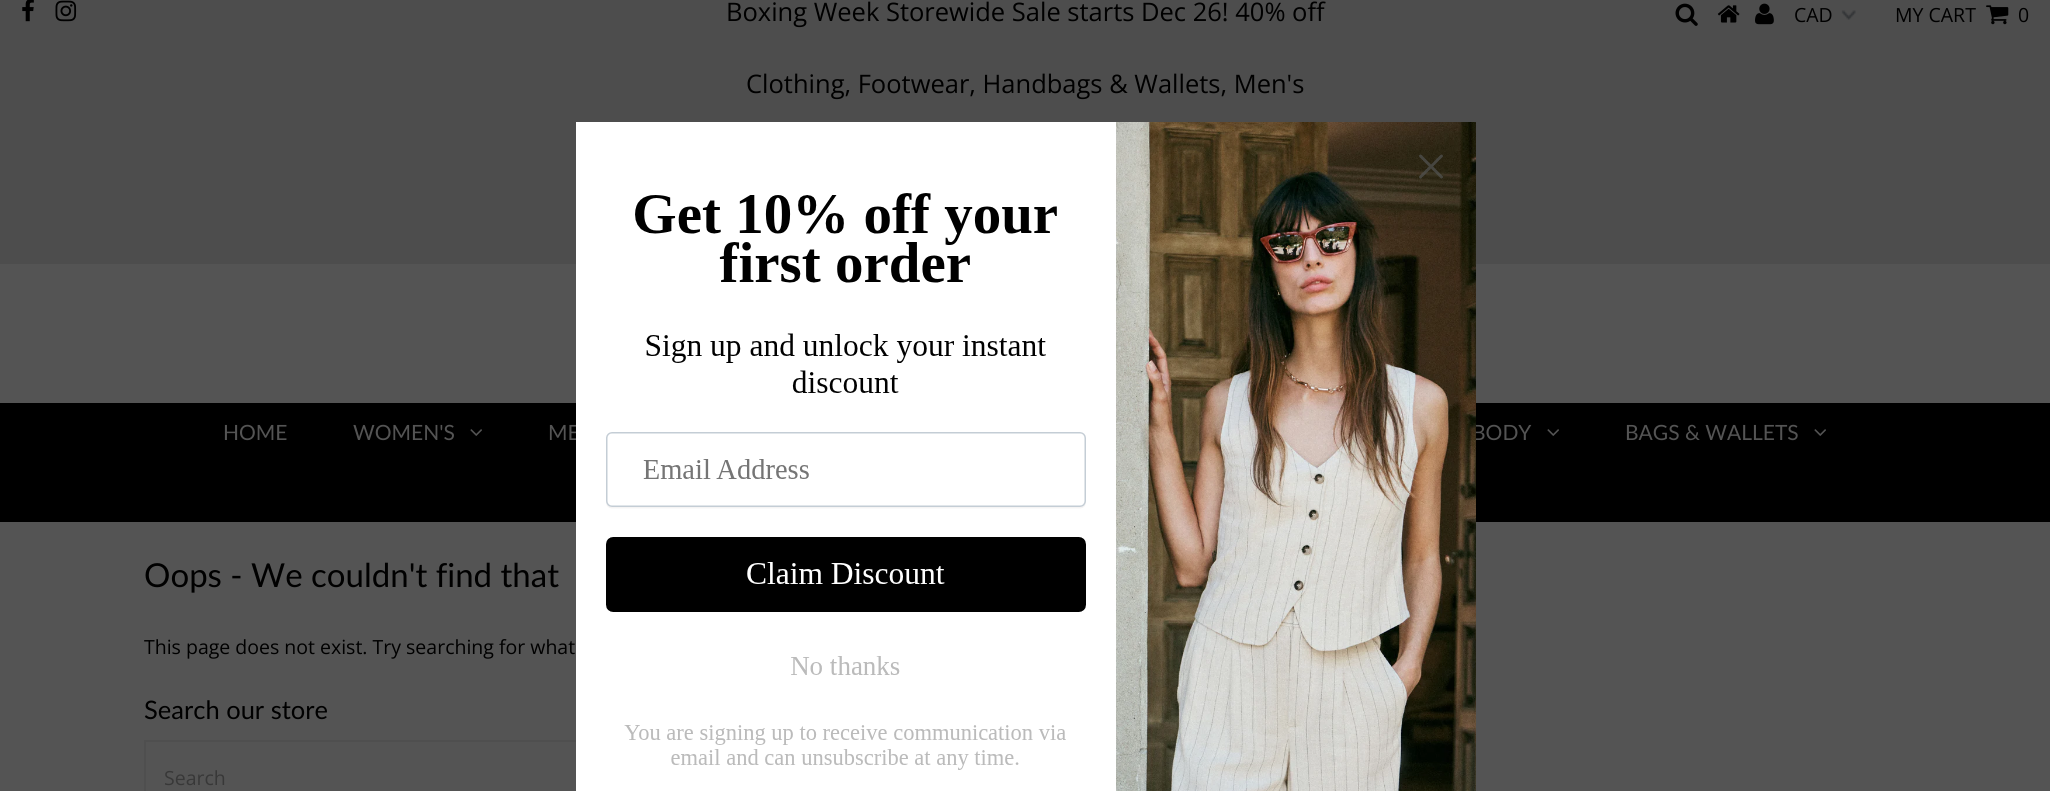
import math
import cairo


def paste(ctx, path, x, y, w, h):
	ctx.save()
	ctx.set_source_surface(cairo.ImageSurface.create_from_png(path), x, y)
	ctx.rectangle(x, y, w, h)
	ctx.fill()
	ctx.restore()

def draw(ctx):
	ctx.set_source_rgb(1, 1, 1)
	ctx.paint()
	ctx.set_source_rgb(0.918, 0.918, 0.918)
	ctx.rectangle(0, 0, 2050, 264)
	ctx.fill()
	paste(ctx, 'media/2.png', 22, 0, 12, 22)
	paste(ctx, 'media/3.png', 55, 0, 22, 22)
	ctx.select_font_face('Open Sans')
	ctx.set_font_size(25.5)
	ctx.set_source_rgb(0, 0, 0)
	ctx.move_to(726, 21)
	ctx.show_text('Boxing Week Storewide Sale starts Dec 26! 40% off')
	ctx.move_to(746, 93)
	ctx.show_text('Clothing, Footwear, Handbags & Wallets, Men\'s')
	paste(ctx, 'media/4.png', 1675, 3, 23, 23)
	paste(ctx, 'media/5.png', 1717, 5, 23, 18)
	paste(ctx, 'media/6.png', 1755, 3, 19, 22)
	paste(ctx, 'media/7.png', 1841, 10, 15, 10)
	ctx.set_font_size(19.5)
	ctx.move_to(1794, 22)
	ctx.show_text('CAD')
	ctx.move_to(1895, 22)
	ctx.show_text('MY CART')
	paste(ctx, 'media/8.png', 1986, 5, 23, 20)
	ctx.move_to(2018, 22)
	ctx.show_text('0')
	ctx.rectangle(0, 403, 2050, 119)
	ctx.fill()
	ctx.select_font_face('Lato')
	ctx.set_font_size(21)
	ctx.set_source_rgb(1, 1, 1)
	ctx.move_to(223, 440)
	ctx.show_text('HOME')
	ctx.move_to(353, 440)
	ctx.show_text('WOMEN\'S')
	paste(ctx, 'media/9.png', 470, 429, 12, 7)
	ctx.move_to(548, 440)
	ctx.show_text('ME')
	ctx.move_to(1472, 440)
	ctx.show_text('BODY')
	paste(ctx, 'media/9.png', 1547, 429, 12, 7)
	ctx.move_to(1625, 440)
	ctx.show_text('BAGS & WALLETS')
	paste(ctx, 'media/9.png', 1814, 429, 12, 7)
	ctx.set_font_size(33)
	ctx.set_source_rgb(0, 0, 0)
	ctx.move_to(144, 587)
	ctx.show_text('Oops - We couldn\'t find that')
	ctx.select_font_face('Open Sans')
	ctx.set_font_size(19.5)
	ctx.move_to(144, 654)
	ctx.show_text('This page does not exist. Try searching for what')
	ctx.select_font_face('Lato')
	ctx.set_font_size(25.5)
	ctx.move_to(144, 719)
	ctx.show_text('Search our store')
	ctx.rectangle(145, 741, 448, 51)
	ctx.set_source_rgb(0.941, 0.941, 0.941)
	ctx.stroke()
	ctx.select_font_face('Open Sans')
	ctx.set_font_size(19.5)
	ctx.set_source_rgb(0.667, 0.667, 0.667)
	ctx.move_to(164, 785)
	ctx.show_text('Search')
	paste(ctx, 'media/1.png', 0, 0, 2050, 791)


surface = cairo.ImageSurface(cairo.FORMAT_RGB24, 2050, 791)
ctx = cairo.Context(surface)
options = cairo.FontOptions()
options.set_hint_metrics(cairo.HINT_METRICS_OFF)
options.set_hint_style(cairo.HINT_STYLE_NONE)
ctx.set_font_options(options)
ctx.set_miter_limit(4)
draw(ctx)
surface.write_to_png('image.png')
